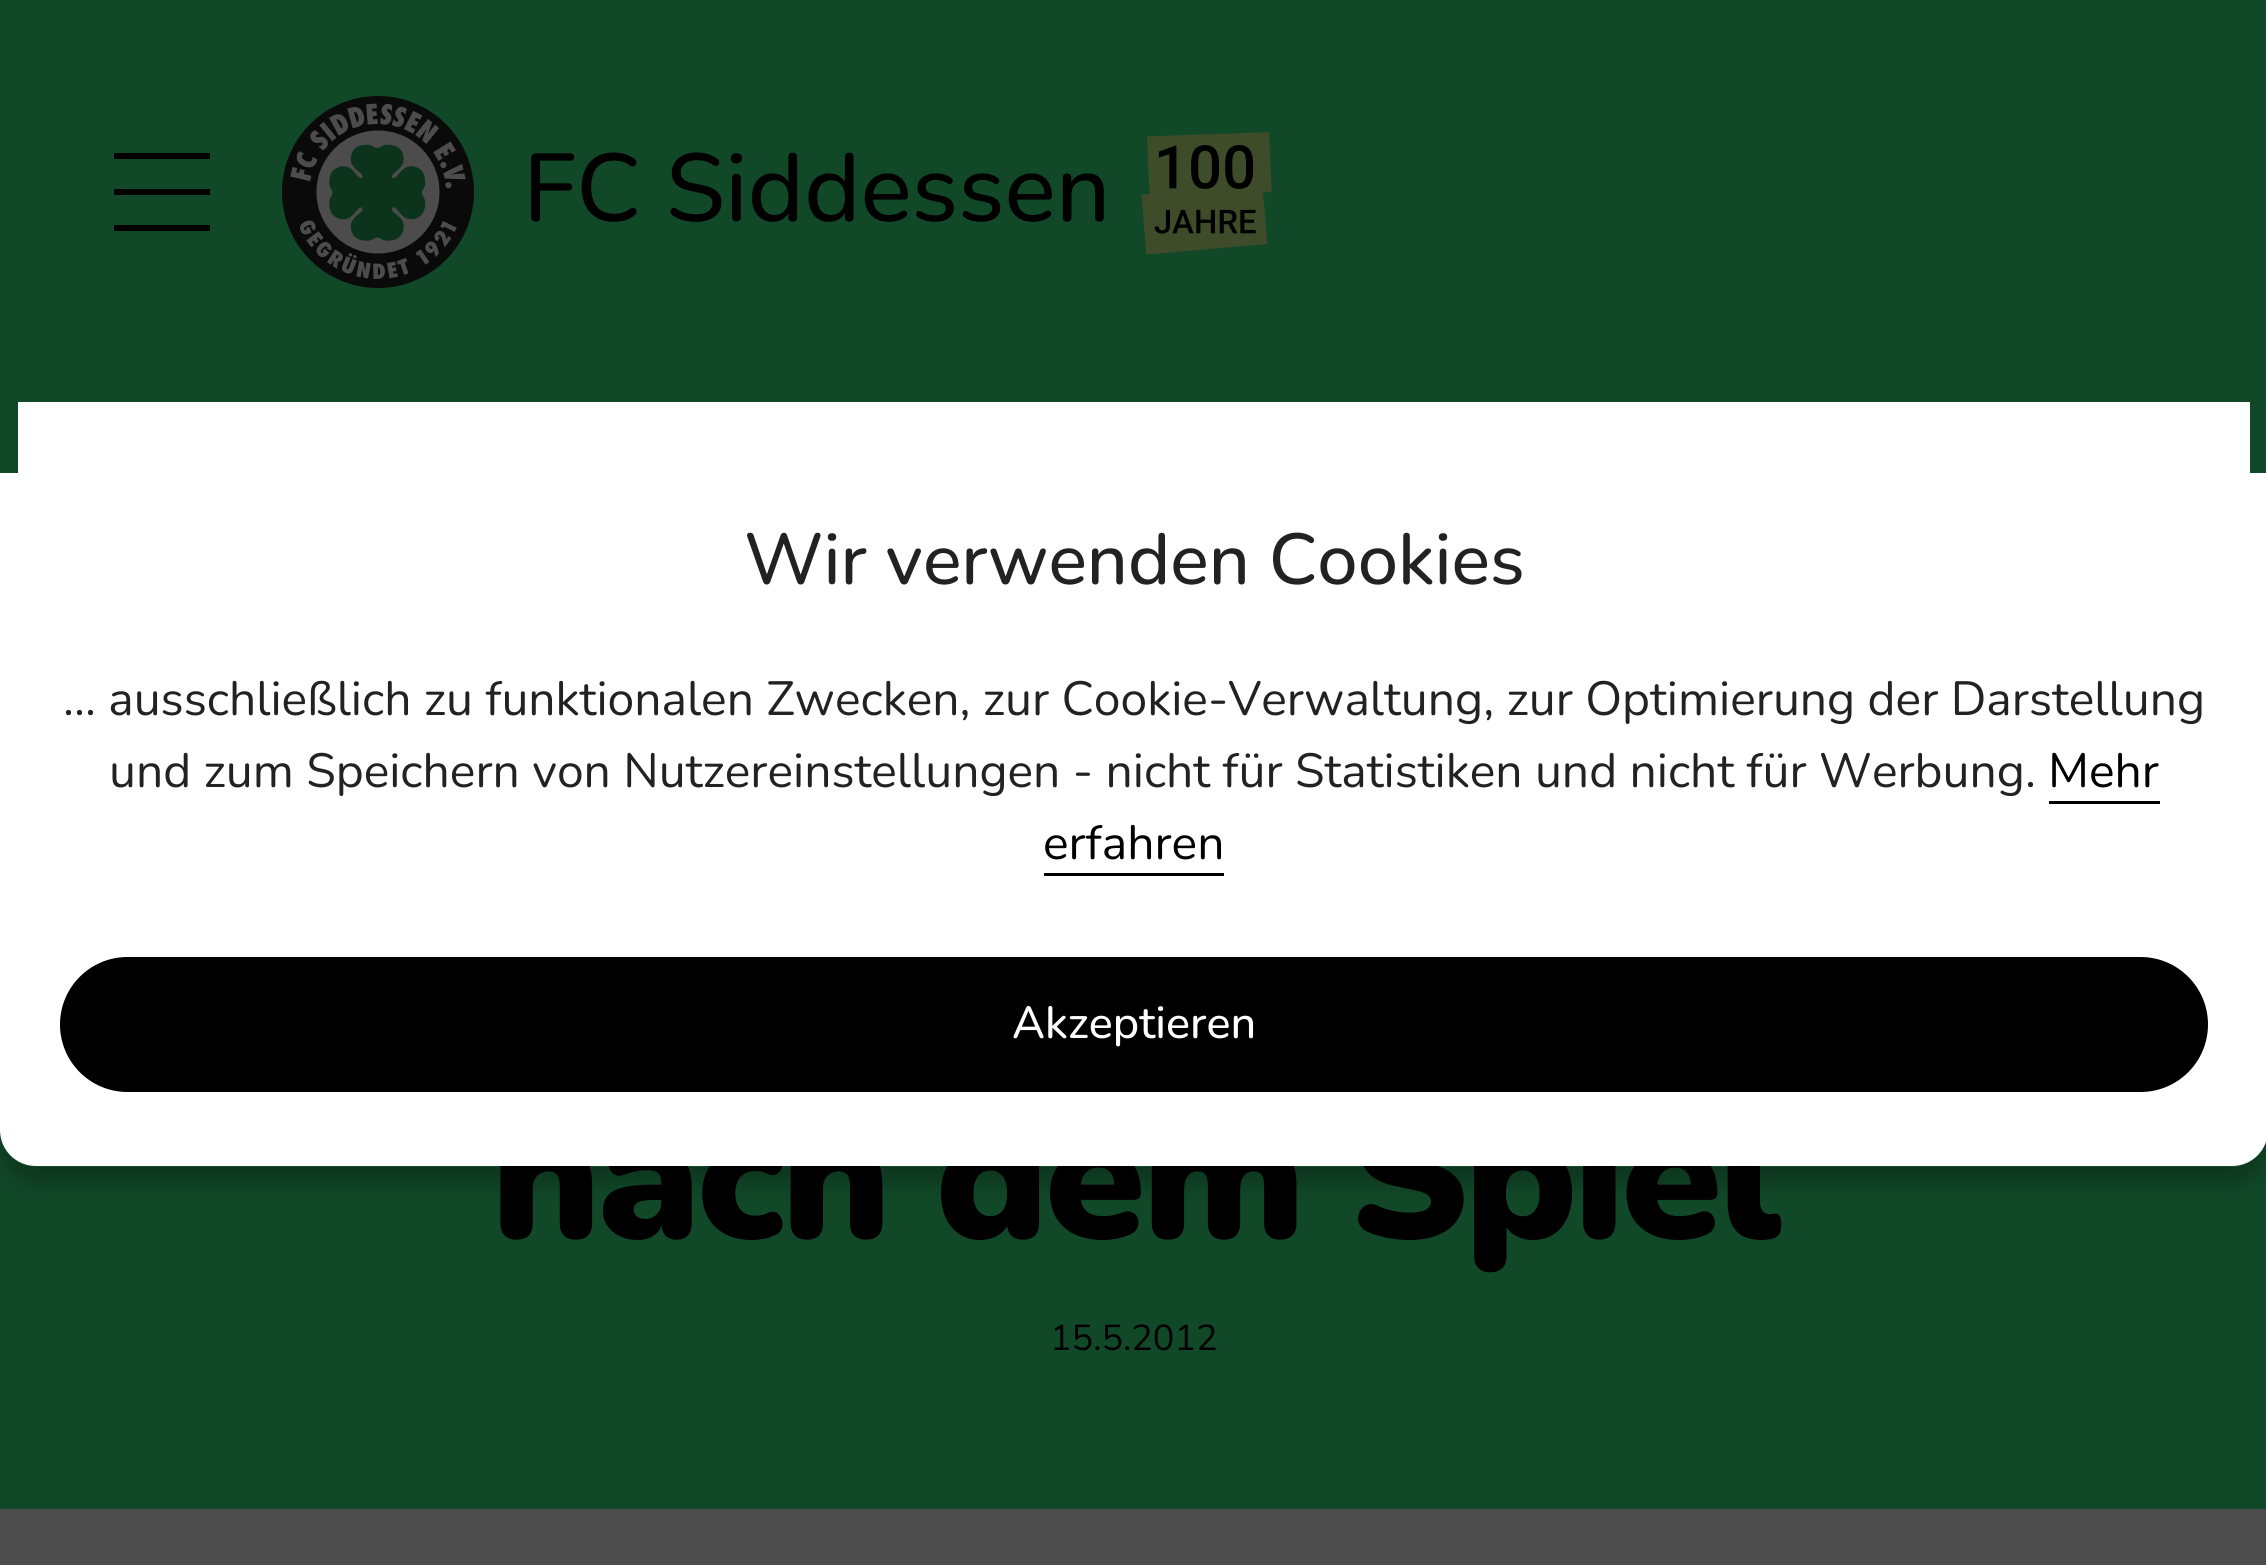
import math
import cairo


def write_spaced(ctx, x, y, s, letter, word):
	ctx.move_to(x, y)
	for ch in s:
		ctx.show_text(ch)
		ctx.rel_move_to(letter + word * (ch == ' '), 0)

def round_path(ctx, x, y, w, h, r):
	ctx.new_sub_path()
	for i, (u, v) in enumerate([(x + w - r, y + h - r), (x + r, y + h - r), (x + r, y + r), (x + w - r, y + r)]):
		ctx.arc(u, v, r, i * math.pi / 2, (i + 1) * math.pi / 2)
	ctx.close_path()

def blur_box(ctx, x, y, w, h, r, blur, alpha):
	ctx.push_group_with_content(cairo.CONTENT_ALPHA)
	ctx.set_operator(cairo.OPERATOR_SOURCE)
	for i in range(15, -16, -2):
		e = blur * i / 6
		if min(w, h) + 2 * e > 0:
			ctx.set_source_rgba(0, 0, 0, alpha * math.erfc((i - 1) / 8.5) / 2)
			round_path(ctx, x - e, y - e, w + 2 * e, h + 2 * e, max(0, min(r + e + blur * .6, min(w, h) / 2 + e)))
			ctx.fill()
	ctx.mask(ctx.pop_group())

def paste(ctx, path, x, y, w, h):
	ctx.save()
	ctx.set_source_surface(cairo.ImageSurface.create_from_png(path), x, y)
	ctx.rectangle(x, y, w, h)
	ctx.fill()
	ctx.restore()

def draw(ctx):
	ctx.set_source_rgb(0.302, 0.302, 0.302)
	ctx.paint()
	ctx.set_source_rgb(0.067, 0.282, 0.157)
	ctx.rectangle(0, 0, 2266, 1509)
	ctx.fill()
	ctx.set_source_rgb(0, 0, 0)
	ctx.rectangle(114, 189, 96, 6)
	ctx.rectangle(114, 153, 96, 6)
	ctx.rectangle(114, 225, 96, 6)
	ctx.fill()
	paste(ctx, 'media/1.png', 282, 96, 192, 192)
	ctx.select_font_face('Nunito ExtraLight')
	ctx.set_font_size(96)
	ctx.move_to(523, 221)
	ctx.show_text('FC Siddessen')
	paste(ctx, 'media/2.png', 1141, 132, 131, 123)
	ctx.select_font_face('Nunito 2 ExtraLight')
	ctx.set_font_size(181.5)
	write_spaced(ctx, 491, 1238, 'nach dem Spiel', -3.6, 0)
	ctx.select_font_face('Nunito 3 ExtraLight')
	ctx.set_font_size(36)
	ctx.move_to(1050, 1350)
	ctx.show_text('15.5.2012')
	ctx.save()
	ctx.set_fill_rule(cairo.FILL_RULE_EVEN_ODD)
	ctx.new_path()
	ctx.move_to(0, 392)
	ctx.line_to(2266, 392)
	ctx.line_to(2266, 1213)
	ctx.line_to(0, 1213)
	ctx.close_path()
	ctx.move_to(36, 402)
	ctx.line_to(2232, 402)
	ctx.curve_to(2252, 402, 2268, 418, 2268, 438)
	ctx.line_to(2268, 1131)
	ctx.curve_to(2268, 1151, 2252, 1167, 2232, 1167)
	ctx.line_to(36, 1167)
	ctx.curve_to(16, 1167, 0, 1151, 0, 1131)
	ctx.line_to(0, 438)
	ctx.curve_to(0, 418, 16, 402, 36, 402)
	ctx.close_path()
	ctx.clip()
	ctx.set_source_rgb(0, 0, 0)
	blur_box(ctx, 0, 420, 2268, 765, 36, 9, 0.23)
	ctx.restore()
	ctx.set_source_rgb(1, 1, 1)
	ctx.new_path()
	ctx.move_to(36, 473)
	ctx.line_to(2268, 473)
	ctx.line_to(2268, 1130)
	ctx.curve_to(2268, 1150, 2252, 1166, 2232, 1166)
	ctx.line_to(36, 1166)
	ctx.curve_to(16, 1166, 0, 1150, 0, 1130)
	ctx.line_to(0, 473)
	ctx.close_path()
	ctx.fill()
	ctx.rectangle(18, 402, 2232, 71)
	ctx.fill()
	ctx.select_font_face('Nunito ExtraLight')
	ctx.set_font_size(72)
	ctx.set_source_rgb(0.133, 0.133, 0.133)
	ctx.move_to(744, 584)
	ctx.show_text('Wir verwenden Cookies')
	ctx.select_font_face('Nunito 3 ExtraLight')
	ctx.set_font_size(48)
	ctx.move_to(63, 715)
	ctx.show_text('... ausschließlich zu funktionalen Zwecken, zur Cookie-Verwaltung, zur Optimierung der Darstellung')
	ctx.move_to(109, 787)
	ctx.show_text('und zum Speichern von Nutzereinstellungen - nicht für Statistiken und nicht für Werbung.')
	ctx.set_source_rgb(0, 0, 0)
	ctx.move_to(2048, 787)
	ctx.show_text('Mehr')
	ctx.rectangle(2049, 801, 111, 3)
	ctx.fill()
	ctx.move_to(1043, 859)
	ctx.show_text('erfahren')
	ctx.rectangle(1044, 873, 180, 3)
	ctx.fill()
	round_path(ctx, 61.5, 958.5, 2145, 132, 66)
	ctx.fill_preserve()
	ctx.set_line_width(3)
	ctx.stroke()
	ctx.select_font_face('Nunito ExtraLight')
	ctx.set_font_size(45)
	ctx.set_source_rgb(1, 1, 1)
	ctx.move_to(1012, 1038)
	ctx.show_text('Akzeptieren')


surface = cairo.ImageSurface(cairo.FORMAT_RGB24, 2266, 1565)
ctx = cairo.Context(surface)
options = cairo.FontOptions()
options.set_hint_metrics(cairo.HINT_METRICS_OFF)
options.set_hint_style(cairo.HINT_STYLE_NONE)
ctx.set_font_options(options)
ctx.set_miter_limit(4)
draw(ctx)
surface.write_to_png('image.png')
